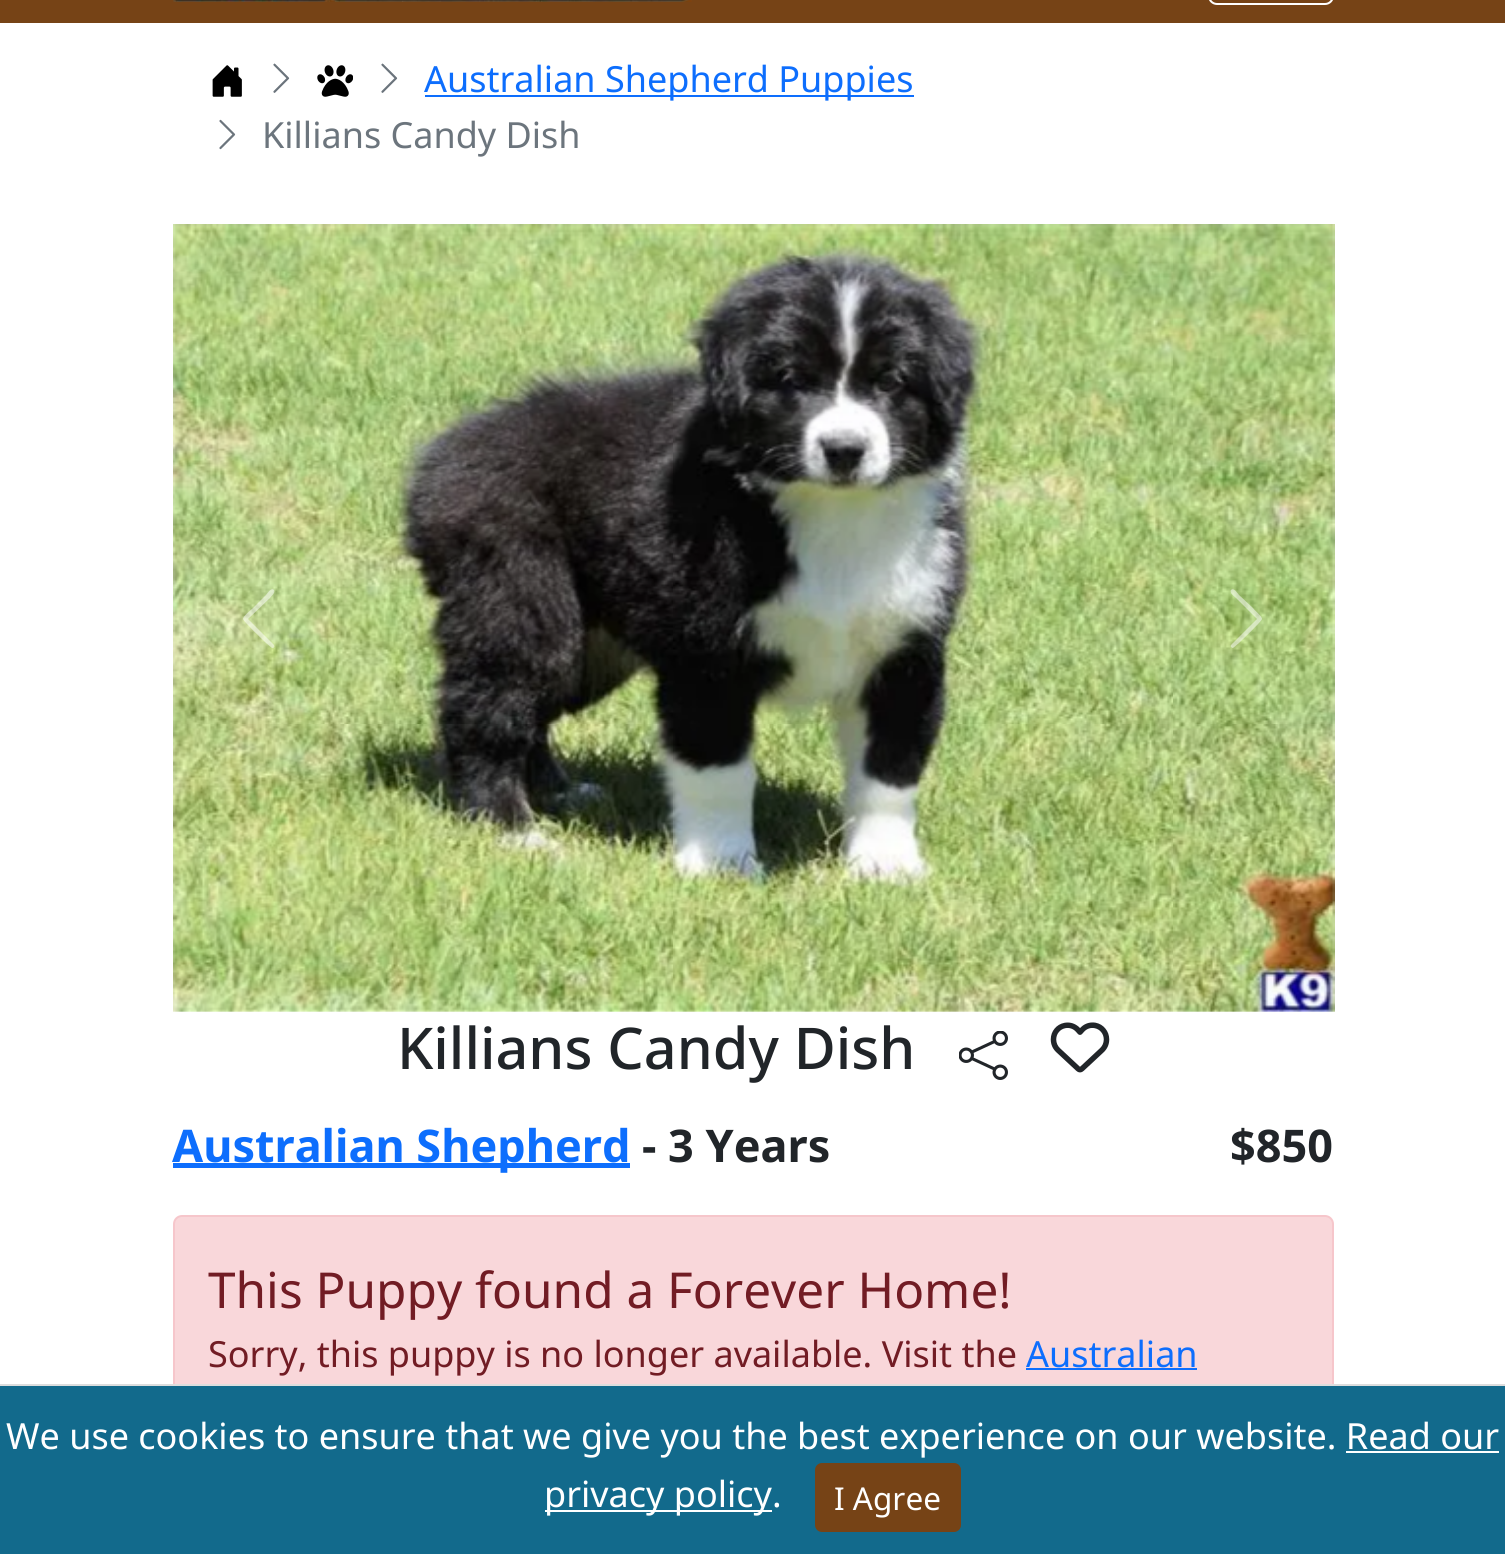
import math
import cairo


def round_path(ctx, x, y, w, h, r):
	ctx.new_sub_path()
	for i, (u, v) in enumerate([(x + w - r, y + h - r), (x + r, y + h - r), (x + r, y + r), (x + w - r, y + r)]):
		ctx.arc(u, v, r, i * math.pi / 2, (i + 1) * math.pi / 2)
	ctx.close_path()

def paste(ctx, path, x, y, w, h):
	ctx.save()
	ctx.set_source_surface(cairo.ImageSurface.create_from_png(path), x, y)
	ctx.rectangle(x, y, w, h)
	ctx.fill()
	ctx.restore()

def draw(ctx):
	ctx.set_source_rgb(1, 1, 1)
	ctx.paint()
	ctx.set_source_rgb(0.463, 0.263, 0.086)
	ctx.rectangle(0, 0, 1505, 23)
	ctx.fill()
	paste(ctx, 'media/1.png', 173, 0, 519, 2)
	round_path(ctx, 1209, -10, 124, 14, 8)
	ctx.set_source_rgb(1, 1, 1)
	ctx.stroke()
	paste(ctx, 'media/2.png', 212, 65, 30, 32)
	paste(ctx, 'media/3.png', 273, 63, 17, 30)
	paste(ctx, 'media/4.png', 317, 65, 36, 32)
	paste(ctx, 'media/3.png', 381, 63, 17, 30)
	ctx.set_source_rgb(0.051, 0.431, 0.992)
	ctx.rectangle(425, 95, 489, 2)
	ctx.fill()
	ctx.select_font_face('Noto Sans')
	ctx.set_font_size(36)
	ctx.move_to(424, 92)
	ctx.show_text('Australian Shepherd Puppies')
	paste(ctx, 'media/5.png', 219, 119, 17, 31)
	ctx.set_source_rgb(0.424, 0.459, 0.49)
	ctx.move_to(262, 148)
	ctx.show_text('Killians Candy Dish')
	paste(ctx, 'media/6.png', 173, 224, 1162, 788)
	ctx.set_source_rgba(1, 1, 1, 0.5)
	ctx.new_path()
	ctx.move_to(274, 590)
	ctx.curve_to(276, 593, 270, 597, 270, 598)
	ctx.line_to(248, 619)
	ctx.line_to(274, 645)
	ctx.curve_to(275, 647, 274, 648, 272, 648)
	ctx.line_to(266, 643)
	ctx.curve_to(263, 640, 243, 621, 243, 619)
	ctx.curve_to(243, 616, 251, 610, 253, 608)
	ctx.line_to(266, 595)
	ctx.curve_to(267, 594, 271, 587, 274, 590)
	ctx.close_path()
	ctx.fill()
	ctx.new_path()
	ctx.move_to(1231, 590)
	ctx.curve_to(1234, 587, 1238, 594, 1239, 595)
	ctx.line_to(1253, 608)
	ctx.curve_to(1254, 610, 1262, 616, 1262, 619)
	ctx.curve_to(1262, 621, 1242, 640, 1239, 643)
	ctx.line_to(1233, 648)
	ctx.curve_to(1232, 648, 1230, 647, 1231, 645)
	ctx.line_to(1257, 619)
	ctx.line_to(1236, 598)
	ctx.curve_to(1235, 597, 1229, 593, 1231, 590)
	ctx.close_path()
	ctx.fill()
	ctx.select_font_face('Noto Sans Medium')
	ctx.set_font_size(57.5)
	ctx.set_source_rgb(0.129, 0.145, 0.161)
	ctx.move_to(397, 1069)
	ctx.show_text('Killians Candy Dish')
	paste(ctx, 'media/7.png', 959, 1031, 49, 49)
	paste(ctx, 'media/8.png', 1050, 1022, 60, 51)
	ctx.set_source_rgb(0.051, 0.431, 0.992)
	ctx.rectangle(173, 1163, 457, 5)
	ctx.fill()
	ctx.select_font_face('Noto Sans', cairo.FONT_SLANT_NORMAL, cairo.FONT_WEIGHT_BOLD)
	ctx.set_font_size(45)
	ctx.move_to(172, 1162)
	ctx.show_text('Australian Shepherd')
	ctx.set_source_rgb(0.129, 0.145, 0.161)
	ctx.move_to(642, 1162)
	ctx.show_text('- 3 Years')
	ctx.move_to(1230, 1162)
	ctx.show_text('$850')
	ctx.set_source_rgb(0.973, 0.843, 0.855)
	round_path(ctx, 174, 1216, 1159, 306, 8)
	ctx.fill_preserve()
	ctx.set_source_rgb(0.961, 0.776, 0.796)
	ctx.stroke()
	ctx.select_font_face('Noto Sans')
	ctx.set_font_size(49.5)
	ctx.set_source_rgb(0.447, 0.11, 0.141)
	ctx.move_to(208, 1308)
	ctx.show_text('This Puppy found a Forever Home!')
	ctx.set_font_size(36)
	ctx.move_to(208, 1367)
	ctx.show_text('Sorry, this puppy is no longer available. Visit the')
	ctx.set_source_rgb(0.051, 0.431, 0.992)
	ctx.move_to(1026, 1367)
	ctx.show_text('Australian')
	ctx.rectangle(1026, 1368, 171, 2)
	ctx.fill()
	ctx.set_source_rgb(0.071, 0.416, 0.549)
	ctx.rectangle(0, 1386, 1505, 168)
	ctx.fill()
	ctx.set_source_rgb(0.867, 0.867, 0.867)
	ctx.rectangle(0, 1384, 1505, 2)
	ctx.fill()
	ctx.set_source_rgb(1, 1, 1)
	ctx.move_to(6, 1449)
	ctx.show_text('We use cookies to ensure that we give you the best experience on our website. Read our')
	ctx.rectangle(545, 1510, 227, 2)
	ctx.fill()
	ctx.move_to(544, 1507)
	ctx.show_text('privacy policy.')
	ctx.rectangle(1346, 1451, 153, 2)
	ctx.fill()
	ctx.set_source_rgb(0.463, 0.263, 0.086)
	round_path(ctx, 816, 1464, 144, 67, 6)
	ctx.fill_preserve()
	ctx.stroke()
	ctx.set_font_size(31.5)
	ctx.set_source_rgb(1, 1, 1)
	ctx.move_to(834, 1510)
	ctx.show_text('I Agree')


surface = cairo.ImageSurface(cairo.FORMAT_RGB24, 1505, 1554)
ctx = cairo.Context(surface)
options = cairo.FontOptions()
options.set_hint_metrics(cairo.HINT_METRICS_OFF)
options.set_hint_style(cairo.HINT_STYLE_NONE)
ctx.set_font_options(options)
ctx.set_miter_limit(4)
draw(ctx)
surface.write_to_png('image.png')
